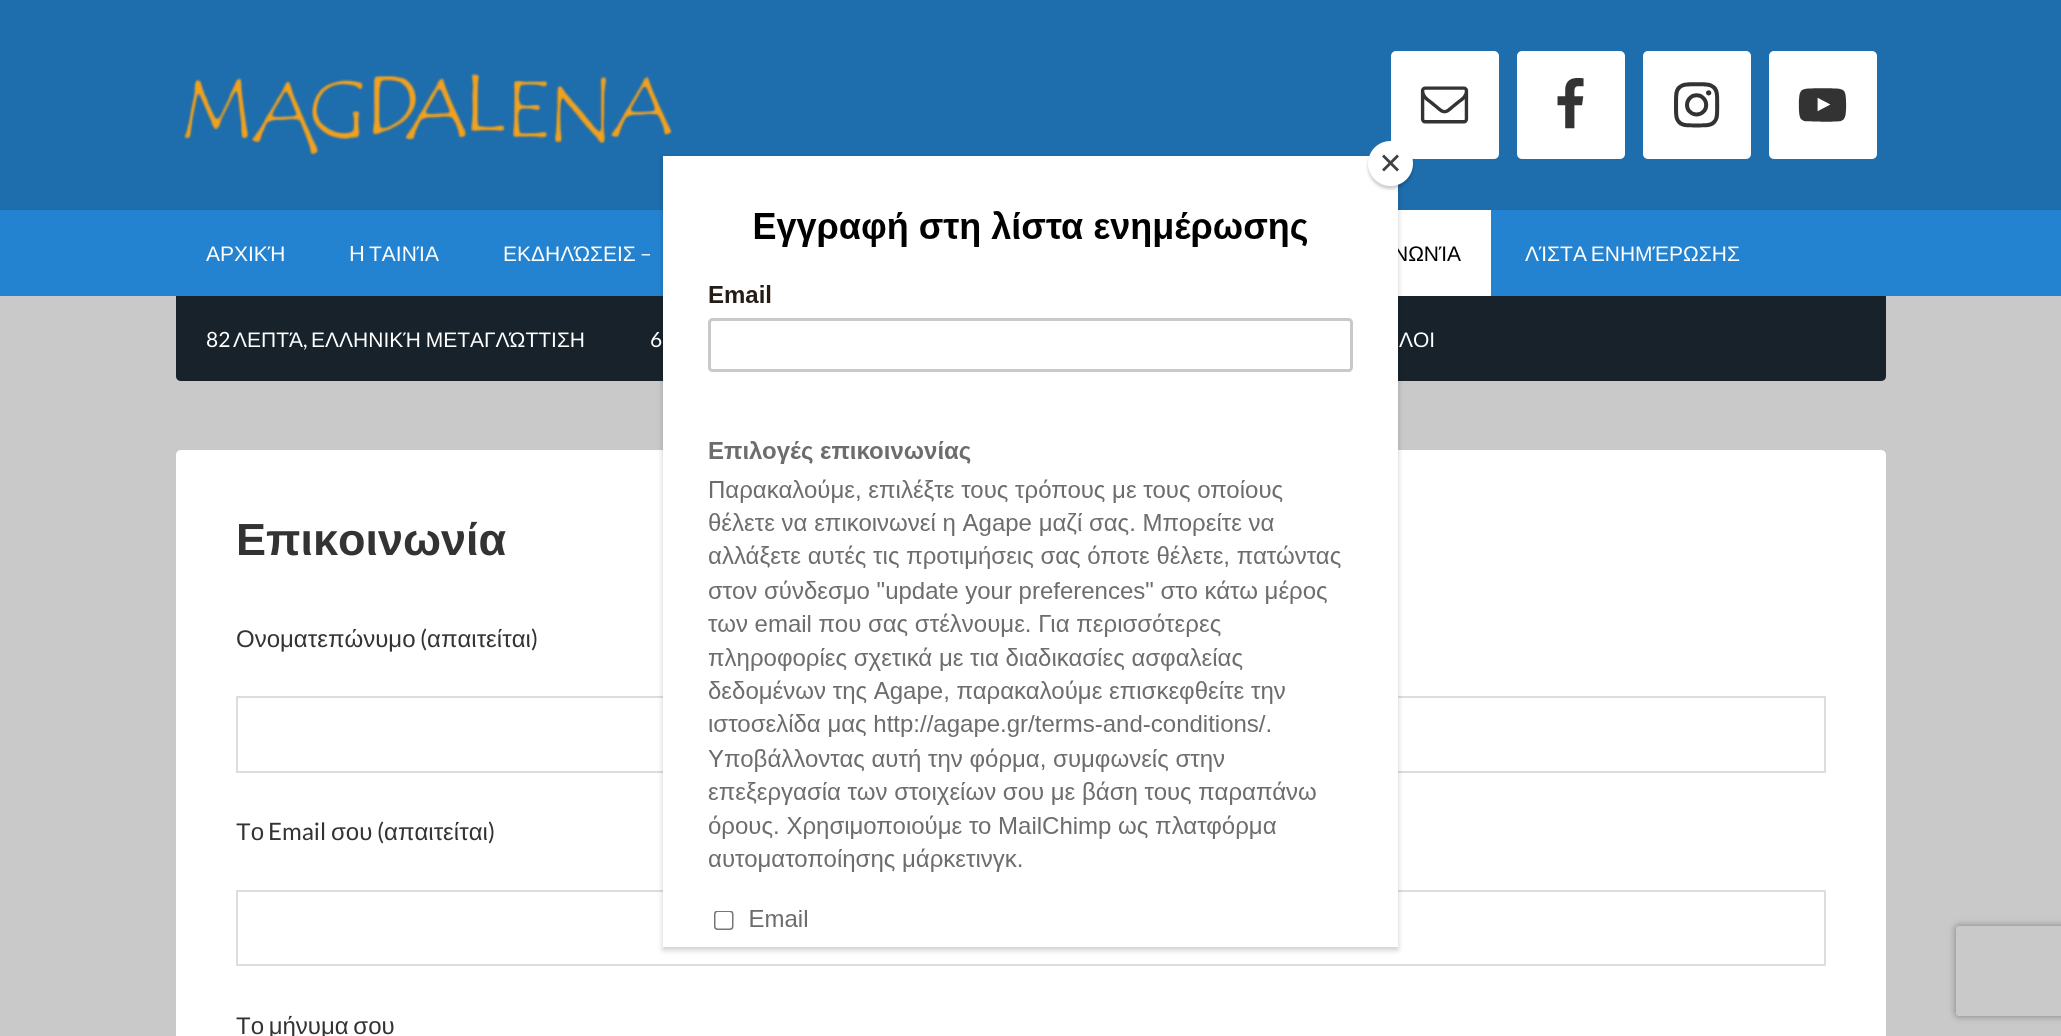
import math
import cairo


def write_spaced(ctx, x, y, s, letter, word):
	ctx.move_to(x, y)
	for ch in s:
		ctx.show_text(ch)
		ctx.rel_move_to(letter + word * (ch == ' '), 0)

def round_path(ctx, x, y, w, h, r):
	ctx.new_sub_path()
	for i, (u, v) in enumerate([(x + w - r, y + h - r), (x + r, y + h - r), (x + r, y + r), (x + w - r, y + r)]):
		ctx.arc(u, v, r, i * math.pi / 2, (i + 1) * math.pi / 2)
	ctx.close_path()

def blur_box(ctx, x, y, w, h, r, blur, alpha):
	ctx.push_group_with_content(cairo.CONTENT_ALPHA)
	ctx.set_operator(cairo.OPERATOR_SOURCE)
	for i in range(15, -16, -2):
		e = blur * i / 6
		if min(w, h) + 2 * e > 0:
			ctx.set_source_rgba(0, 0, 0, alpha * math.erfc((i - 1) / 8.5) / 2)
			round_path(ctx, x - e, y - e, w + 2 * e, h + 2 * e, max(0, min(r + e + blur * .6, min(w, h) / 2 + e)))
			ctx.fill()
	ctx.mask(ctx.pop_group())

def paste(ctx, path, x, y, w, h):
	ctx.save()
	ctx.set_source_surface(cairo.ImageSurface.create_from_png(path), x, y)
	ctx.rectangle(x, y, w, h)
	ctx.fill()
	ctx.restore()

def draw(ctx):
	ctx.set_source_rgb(0.788, 0.788, 0.788)
	ctx.paint()
	ctx.set_source_rgb(0.118, 0.427, 0.678)
	ctx.rectangle(0, 0, 2061, 210)
	ctx.fill()
	paste(ctx, 'media/2.png', 184, 73, 489, 82)
	ctx.set_source_rgb(1, 1, 1)
	round_path(ctx, 1391, 51, 108, 108, 5)
	ctx.fill()
	ctx.set_source_rgb(0.141, 0.514, 0.816)
	ctx.rectangle(0, 210, 2061, 86)
	ctx.fill()
	ctx.set_source_rgb(1, 1, 1)
	ctx.rectangle(1398, 210, 93, 86)
	ctx.fill()
	ctx.set_source_rgb(0.09, 0.133, 0.169)
	ctx.new_path()
	ctx.move_to(176, 296)
	ctx.line_to(1886, 296)
	ctx.line_to(1886, 376)
	ctx.curve_to(1886, 379, 1884, 381, 1881, 381)
	ctx.line_to(181, 381)
	ctx.curve_to(178, 381, 176, 379, 176, 376)
	ctx.close_path()
	ctx.fill()
	ctx.set_source_rgb(1, 1, 1)
	round_path(ctx, 176, 450, 1710, 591, 5)
	ctx.fill()
	ctx.rectangle(237, 697, 1588, 75)
	ctx.set_source_rgb(0.867, 0.867, 0.867)
	ctx.stroke()
	ctx.rectangle(237, 891, 1588, 74)
	ctx.stroke()
	ctx.set_source_rgb(0, 0, 0)
	blur_box(ctx, 663, 159, 735, 791, 0, 3, 0.2)
	ctx.select_font_face('Liberation Sans')
	ctx.set_font_size(21)
	ctx.set_source_rgb(0, 0, 0)
	ctx.move_to(1393, 261)
	ctx.show_text('ΝΩΝΊΑ')
	paste(ctx, 'media/1.png', 663, 156, 735, 791)
	ctx.set_source_rgb(0, 0, 0)
	blur_box(ctx, 1368, 144, 45, 45, 22.5, 1.5, 0.2)
	ctx.set_source_rgb(1, 1, 1)
	ctx.arc(1390.5, 163.5, 22.5, 0, 2 * math.pi)
	ctx.fill()
	ctx.set_source_rgb(0.255, 0.255, 0.255)
	ctx.new_path()
	ctx.move_to(1397, 154.5)
	ctx.line_to(1399, 156.5)
	ctx.line_to(1384, 171.5)
	ctx.line_to(1382, 169.5)
	ctx.close_path()
	ctx.fill()
	ctx.new_path()
	ctx.move_to(1382, 156.5)
	ctx.line_to(1384, 154.5)
	ctx.line_to(1399, 169.5)
	ctx.line_to(1397, 171.5)
	ctx.close_path()
	ctx.fill()
	paste(ctx, 'media/3.png', 1420, 86, 49, 38)
	ctx.set_source_rgb(1, 1, 1)
	round_path(ctx, 1517, 51, 108, 108, 5)
	ctx.fill()
	paste(ctx, 'media/4.png', 1557, 78, 27, 51)
	round_path(ctx, 1643, 51, 108, 108, 5)
	ctx.fill()
	paste(ctx, 'media/5.png', 1674, 82, 46, 46)
	round_path(ctx, 1769, 51, 108, 108, 5)
	ctx.fill()
	paste(ctx, 'media/6.png', 1798, 88, 49, 34)
	ctx.move_to(206, 261)
	ctx.show_text('ΑΡΧΙΚΉ')
	ctx.select_font_face('Lato')
	ctx.move_to(349, 261)
	ctx.show_text('H')
	ctx.select_font_face('Liberation Sans')
	ctx.move_to(369, 261)
	ctx.show_text('ΤΑΙΝΊΑ')
	ctx.move_to(503, 261)
	ctx.show_text('ΕΚΔΗΛΏΣΕΙΣ')
	ctx.select_font_face('Lato')
	ctx.move_to(640, 261)
	ctx.show_text('–')
	ctx.select_font_face('Liberation Sans')
	write_spaced(ctx, 1525, 261, 'ΛΊΣΤΑ ΕΝΗΜΈΡΩΣΗΣ', 0, -2)
	ctx.select_font_face('Lato')
	ctx.move_to(206, 347)
	ctx.show_text('82')
	ctx.select_font_face('Liberation Sans')
	ctx.move_to(233, 347)
	ctx.show_text('ΛΕΠΤΆ')
	ctx.select_font_face('Lato')
	ctx.move_to(303, 347)
	ctx.show_text(',')
	ctx.select_font_face('Liberation Sans')
	write_spaced(ctx, 311, 347, 'ΕΛΛΗΝΙΚΉ ΜΕΤΑΓΛΏΤΤΙΣΗ', 0, -1)
	ctx.select_font_face('Lato')
	ctx.move_to(650, 347)
	ctx.show_text('6')
	ctx.select_font_face('Liberation Sans')
	write_spaced(ctx, 1399, 347, 'ΛΟΙ', 0, -1)
	ctx.select_font_face('Liberation Sans', cairo.FONT_SLANT_NORMAL, cairo.FONT_WEIGHT_BOLD)
	ctx.set_font_size(45)
	ctx.set_source_rgb(0.2, 0.2, 0.2)
	ctx.move_to(236, 555)
	ctx.show_text('Επικοινωνία')
	ctx.select_font_face('Liberation Sans')
	ctx.set_font_size(24)
	ctx.move_to(236, 647)
	ctx.show_text('Ονοματεπώνυμο')
	ctx.select_font_face('Lato')
	ctx.move_to(420, 647)
	ctx.show_text('(')
	ctx.select_font_face('Liberation Sans')
	ctx.move_to(427, 647)
	ctx.show_text('απαιτείται')
	ctx.select_font_face('Lato')
	ctx.move_to(531, 647)
	ctx.show_text(')')
	ctx.select_font_face('Liberation Sans')
	ctx.move_to(236, 840)
	ctx.show_text('Το')
	ctx.select_font_face('Lato')
	ctx.move_to(268, 840)
	ctx.show_text('Email')
	ctx.select_font_face('Liberation Sans')
	ctx.move_to(331, 840)
	ctx.show_text('σου')
	ctx.select_font_face('Lato')
	ctx.move_to(377, 840)
	ctx.show_text('(')
	ctx.select_font_face('Liberation Sans')
	ctx.move_to(384, 840)
	ctx.show_text('απαιτείται')
	ctx.select_font_face('Lato')
	ctx.move_to(488, 840)
	ctx.show_text(')')
	ctx.select_font_face('Liberation Sans')
	write_spaced(ctx, 236, 1034, 'Το μήνυμα σου', 0, -2)
	ctx.save()
	ctx.set_fill_rule(cairo.FILL_RULE_EVEN_ODD)
	ctx.new_path()
	ctx.move_to(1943, 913)
	ctx.line_to(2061, 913)
	ctx.line_to(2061, 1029)
	ctx.line_to(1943, 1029)
	ctx.close_path()
	ctx.move_to(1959, 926)
	ctx.line_to(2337, 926)
	ctx.curve_to(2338.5, 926, 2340, 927.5, 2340, 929)
	ctx.line_to(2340, 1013)
	ctx.curve_to(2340, 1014.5, 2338.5, 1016, 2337, 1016)
	ctx.line_to(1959, 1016)
	ctx.curve_to(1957.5, 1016, 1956, 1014.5, 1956, 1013)
	ctx.line_to(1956, 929)
	ctx.curve_to(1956, 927.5, 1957.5, 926, 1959, 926)
	ctx.close_path()
	ctx.clip()
	ctx.set_source_rgb(0.502, 0.502, 0.502)
	blur_box(ctx, 1956, 926, 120, 90, 3, 4, 1)
	ctx.restore()


surface = cairo.ImageSurface(cairo.FORMAT_RGB24, 2061, 1036)
ctx = cairo.Context(surface)
options = cairo.FontOptions()
options.set_hint_metrics(cairo.HINT_METRICS_OFF)
options.set_hint_style(cairo.HINT_STYLE_NONE)
ctx.set_font_options(options)
ctx.set_miter_limit(4)
draw(ctx)
surface.write_to_png('image.png')
